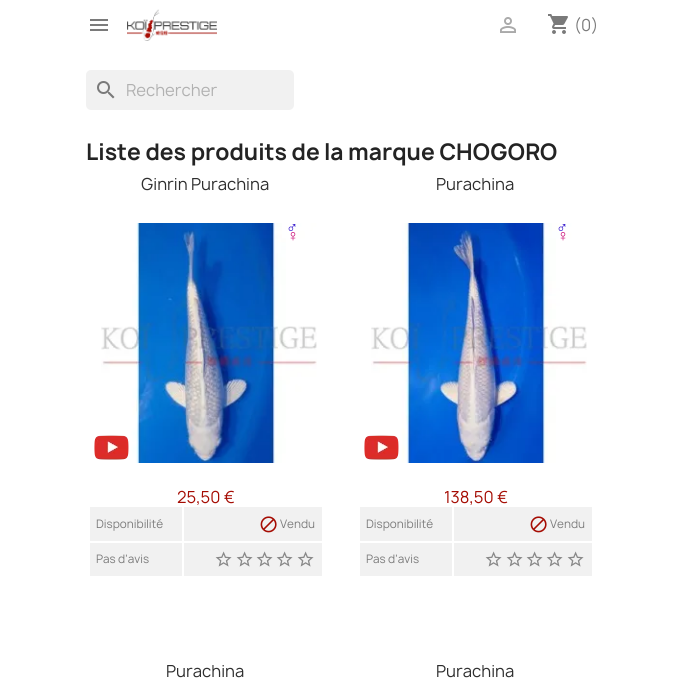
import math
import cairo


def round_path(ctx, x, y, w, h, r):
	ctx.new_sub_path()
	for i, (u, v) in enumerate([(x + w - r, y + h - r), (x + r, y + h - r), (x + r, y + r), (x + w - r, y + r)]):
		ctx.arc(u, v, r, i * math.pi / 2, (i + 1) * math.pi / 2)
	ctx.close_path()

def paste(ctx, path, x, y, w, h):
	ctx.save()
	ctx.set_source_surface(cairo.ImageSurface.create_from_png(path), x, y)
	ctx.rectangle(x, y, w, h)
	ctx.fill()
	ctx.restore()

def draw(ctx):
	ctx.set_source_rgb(1, 1, 1)
	ctx.paint()
	paste(ctx, 'media/1.png', 90, 19, 18, 12)
	paste(ctx, 'media/2.png', 127, 9, 90, 32)
	paste(ctx, 'media/3.png', 500, 17, 16, 16)
	paste(ctx, 'media/4.png', 548, 14, 20, 20)
	ctx.select_font_face('Manrope')
	ctx.set_font_size(16)
	ctx.set_source_rgb(0.478, 0.478, 0.478)
	ctx.move_to(574, 31)
	ctx.show_text('(0)')
	ctx.set_source_rgb(0.945, 0.945, 0.945)
	round_path(ctx, 86, 70, 208, 40, 5)
	ctx.fill()
	paste(ctx, 'media/5.png', 97, 81, 18, 18)
	ctx.set_source_rgb(0.694, 0.694, 0.694)
	ctx.move_to(126, 96)
	ctx.show_text('Rechercher')
	ctx.select_font_face('Manrope', cairo.FONT_SLANT_NORMAL, cairo.FONT_WEIGHT_BOLD)
	ctx.set_font_size(22)
	ctx.set_source_rgb(0.137, 0.137, 0.137)
	ctx.move_to(86, 160)
	ctx.show_text('Liste des produits de la marque CHOGORO')
	ctx.select_font_face('Manrope')
	ctx.set_font_size(16)
	ctx.set_source_rgb(0.18, 0.18, 0.18)
	ctx.move_to(141, 190)
	ctx.show_text('Ginrin Purachina')
	paste(ctx, 'media/6.png', 101, 223, 216, 240)
	ctx.select_font_face('Liberation Serif')
	ctx.set_source_rgb(0.122, 0, 0.78)
	ctx.move_to(286, 233)
	ctx.show_text('♂')
	ctx.set_source_rgb(0.78, 0, 0.431)
	ctx.move_to(287, 241)
	ctx.show_text('♀')
	paste(ctx, 'media/7.png', 94, 435, 35, 25)
	ctx.select_font_face('Manrope')
	ctx.set_source_rgb(0.647, 0.047, 0.012)
	ctx.move_to(177, 503)
	ctx.show_text('25,50 €')
	ctx.set_source_rgb(0.945, 0.945, 0.945)
	ctx.rectangle(90, 507, 92, 34)
	ctx.fill()
	ctx.set_font_size(11.25)
	ctx.set_source_rgb(0.478, 0.478, 0.478)
	ctx.move_to(96, 528)
	ctx.show_text('Disponibilité')
	ctx.set_source_rgb(0.945, 0.945, 0.945)
	ctx.rectangle(184, 507, 138, 34)
	ctx.fill()
	paste(ctx, 'media/8.png', 260, 516, 17, 17)
	ctx.set_source_rgb(0.478, 0.478, 0.478)
	ctx.move_to(280, 528)
	ctx.show_text('Vendu')
	ctx.set_source_rgb(0.945, 0.945, 0.945)
	ctx.rectangle(90, 543, 92, 33)
	ctx.fill()
	ctx.set_source_rgb(0.478, 0.478, 0.478)
	ctx.move_to(96, 563)
	ctx.show_text('Pas d\'avis')
	ctx.set_source_rgb(0.945, 0.945, 0.945)
	ctx.rectangle(184, 543, 138, 33)
	ctx.fill()
	paste(ctx, 'media/9.png', 215, 551, 17, 16)
	paste(ctx, 'media/9.png', 236, 551, 17, 16)
	paste(ctx, 'media/9.png', 256, 551, 17, 16)
	paste(ctx, 'media/9.png', 276, 551, 17, 16)
	paste(ctx, 'media/9.png', 297, 551, 17, 16)
	ctx.set_font_size(16)
	ctx.set_source_rgb(0.18, 0.18, 0.18)
	ctx.move_to(436, 190)
	ctx.show_text('Purachina')
	paste(ctx, 'media/10.png', 371, 223, 216, 240)
	ctx.select_font_face('Liberation Serif')
	ctx.set_source_rgb(0.122, 0, 0.78)
	ctx.move_to(556, 233)
	ctx.show_text('♂')
	ctx.set_source_rgb(0.78, 0, 0.431)
	ctx.move_to(557, 241)
	ctx.show_text('♀')
	paste(ctx, 'media/7.png', 364, 435, 35, 25)
	ctx.select_font_face('Manrope')
	ctx.set_source_rgb(0.647, 0.047, 0.012)
	ctx.move_to(444, 503)
	ctx.show_text('138,50 €')
	ctx.set_source_rgb(0.945, 0.945, 0.945)
	ctx.rectangle(360, 507, 92, 34)
	ctx.fill()
	ctx.set_font_size(11.25)
	ctx.set_source_rgb(0.478, 0.478, 0.478)
	ctx.move_to(366, 528)
	ctx.show_text('Disponibilité')
	ctx.set_source_rgb(0.945, 0.945, 0.945)
	ctx.rectangle(454, 507, 138, 34)
	ctx.fill()
	paste(ctx, 'media/8.png', 530, 516, 17, 17)
	ctx.set_source_rgb(0.478, 0.478, 0.478)
	ctx.move_to(550, 528)
	ctx.show_text('Vendu')
	ctx.set_source_rgb(0.945, 0.945, 0.945)
	ctx.rectangle(360, 543, 92, 33)
	ctx.fill()
	ctx.set_source_rgb(0.478, 0.478, 0.478)
	ctx.move_to(366, 563)
	ctx.show_text('Pas d\'avis')
	ctx.set_source_rgb(0.945, 0.945, 0.945)
	ctx.rectangle(454, 543, 138, 33)
	ctx.fill()
	paste(ctx, 'media/9.png', 485, 551, 17, 16)
	paste(ctx, 'media/9.png', 506, 551, 17, 16)
	paste(ctx, 'media/9.png', 526, 551, 17, 16)
	paste(ctx, 'media/9.png', 546, 551, 17, 16)
	paste(ctx, 'media/9.png', 567, 551, 17, 16)
	ctx.set_font_size(16)
	ctx.set_source_rgb(0.18, 0.18, 0.18)
	ctx.move_to(166, 677)
	ctx.show_text('Purachina')
	ctx.move_to(436, 677)
	ctx.show_text('Purachina')


surface = cairo.ImageSurface(cairo.FORMAT_RGB24, 681, 682)
ctx = cairo.Context(surface)
options = cairo.FontOptions()
options.set_hint_metrics(cairo.HINT_METRICS_OFF)
options.set_hint_style(cairo.HINT_STYLE_NONE)
ctx.set_font_options(options)
ctx.set_miter_limit(4)
draw(ctx)
surface.write_to_png('image.png')
